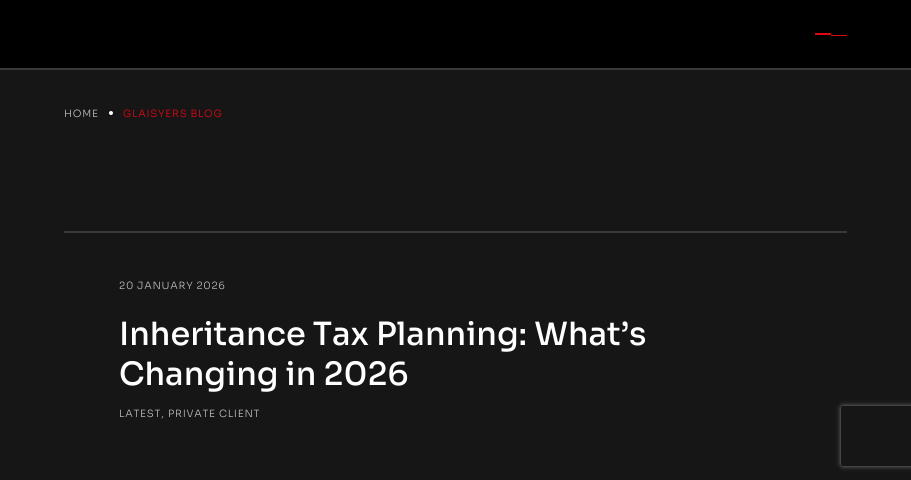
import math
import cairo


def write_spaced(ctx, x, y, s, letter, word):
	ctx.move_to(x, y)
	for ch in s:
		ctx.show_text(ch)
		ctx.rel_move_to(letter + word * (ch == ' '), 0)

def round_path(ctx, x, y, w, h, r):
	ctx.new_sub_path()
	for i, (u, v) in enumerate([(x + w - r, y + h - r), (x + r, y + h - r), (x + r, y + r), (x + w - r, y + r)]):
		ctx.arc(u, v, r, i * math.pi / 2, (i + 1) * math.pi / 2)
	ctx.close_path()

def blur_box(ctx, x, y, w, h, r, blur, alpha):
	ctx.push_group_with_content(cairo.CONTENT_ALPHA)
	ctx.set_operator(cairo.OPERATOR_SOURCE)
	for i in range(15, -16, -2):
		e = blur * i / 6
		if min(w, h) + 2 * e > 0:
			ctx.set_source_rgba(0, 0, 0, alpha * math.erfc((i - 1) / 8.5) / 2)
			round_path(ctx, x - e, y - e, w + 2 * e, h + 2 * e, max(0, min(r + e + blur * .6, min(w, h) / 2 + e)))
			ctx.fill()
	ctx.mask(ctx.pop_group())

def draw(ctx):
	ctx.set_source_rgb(0.09, 0.086, 0.086)
	ctx.paint()
	ctx.set_source_rgb(0, 0, 0)
	ctx.rectangle(0, 0, 911, 68)
	ctx.fill()
	ctx.set_source_rgb(0.224, 0.224, 0.224)
	ctx.rectangle(0, 68, 911, 2)
	ctx.fill()
	ctx.set_source_rgb(0.89, 0.024, 0.075)
	ctx.rectangle(831, 35, 16, 1)
	ctx.rectangle(815, 33, 16, 2)
	ctx.fill()
	ctx.select_font_face('Sora Light')
	ctx.set_font_size(10)
	ctx.set_source_rgb(0.757, 0.757, 0.757)
	write_spaced(ctx, 64, 117, 'HOME', 0.75, 0)
	ctx.set_source_rgb(1, 1, 1)
	ctx.new_path()
	ctx.arc(111, 113, 2, 0, 2 * math.pi)
	ctx.fill()
	ctx.set_source_rgb(0.89, 0.024, 0.075)
	write_spaced(ctx, 123, 117, 'GLAISYERS BLOG', 0.75, 0)
	ctx.set_source_rgb(0.224, 0.224, 0.224)
	ctx.rectangle(64, 231, 783, 2)
	ctx.fill()
	ctx.set_source_rgb(0.757, 0.757, 0.757)
	write_spaced(ctx, 119, 289, '20 JANUARY 2026', 0.75, 0)
	ctx.select_font_face('Sora Medium')
	ctx.set_font_size(32)
	ctx.set_source_rgb(1, 1, 1)
	ctx.move_to(119, 345)
	ctx.show_text('Inheritance Tax Planning: What’s')
	ctx.move_to(119, 385)
	ctx.show_text('Changing in 2026')
	ctx.select_font_face('Sora Light')
	ctx.set_font_size(10)
	ctx.set_source_rgb(0.757, 0.757, 0.757)
	write_spaced(ctx, 119, 417, 'LATEST,', 0.75, 0)
	write_spaced(ctx, 168, 417, 'PRIVATE CLIENT', 0.75, 0)
	ctx.save()
	ctx.set_fill_rule(cairo.FILL_RULE_EVEN_ODD)
	ctx.new_path()
	ctx.move_to(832, 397)
	ctx.line_to(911, 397)
	ctx.line_to(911, 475)
	ctx.line_to(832, 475)
	ctx.close_path()
	ctx.move_to(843, 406)
	ctx.line_to(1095, 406)
	ctx.curve_to(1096, 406, 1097, 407, 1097, 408)
	ctx.line_to(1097, 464)
	ctx.curve_to(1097, 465, 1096, 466, 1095, 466)
	ctx.line_to(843, 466)
	ctx.curve_to(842, 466, 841, 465, 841, 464)
	ctx.line_to(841, 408)
	ctx.curve_to(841, 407, 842, 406, 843, 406)
	ctx.close_path()
	ctx.clip()
	ctx.set_source_rgb(0.502, 0.502, 0.502)
	blur_box(ctx, 841, 406, 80, 60, 2, 2.5, 1)
	ctx.restore()


surface = cairo.ImageSurface(cairo.FORMAT_RGB24, 911, 480)
ctx = cairo.Context(surface)
options = cairo.FontOptions()
options.set_hint_metrics(cairo.HINT_METRICS_OFF)
options.set_hint_style(cairo.HINT_STYLE_NONE)
ctx.set_font_options(options)
ctx.set_miter_limit(4)
draw(ctx)
surface.write_to_png('image.png')
